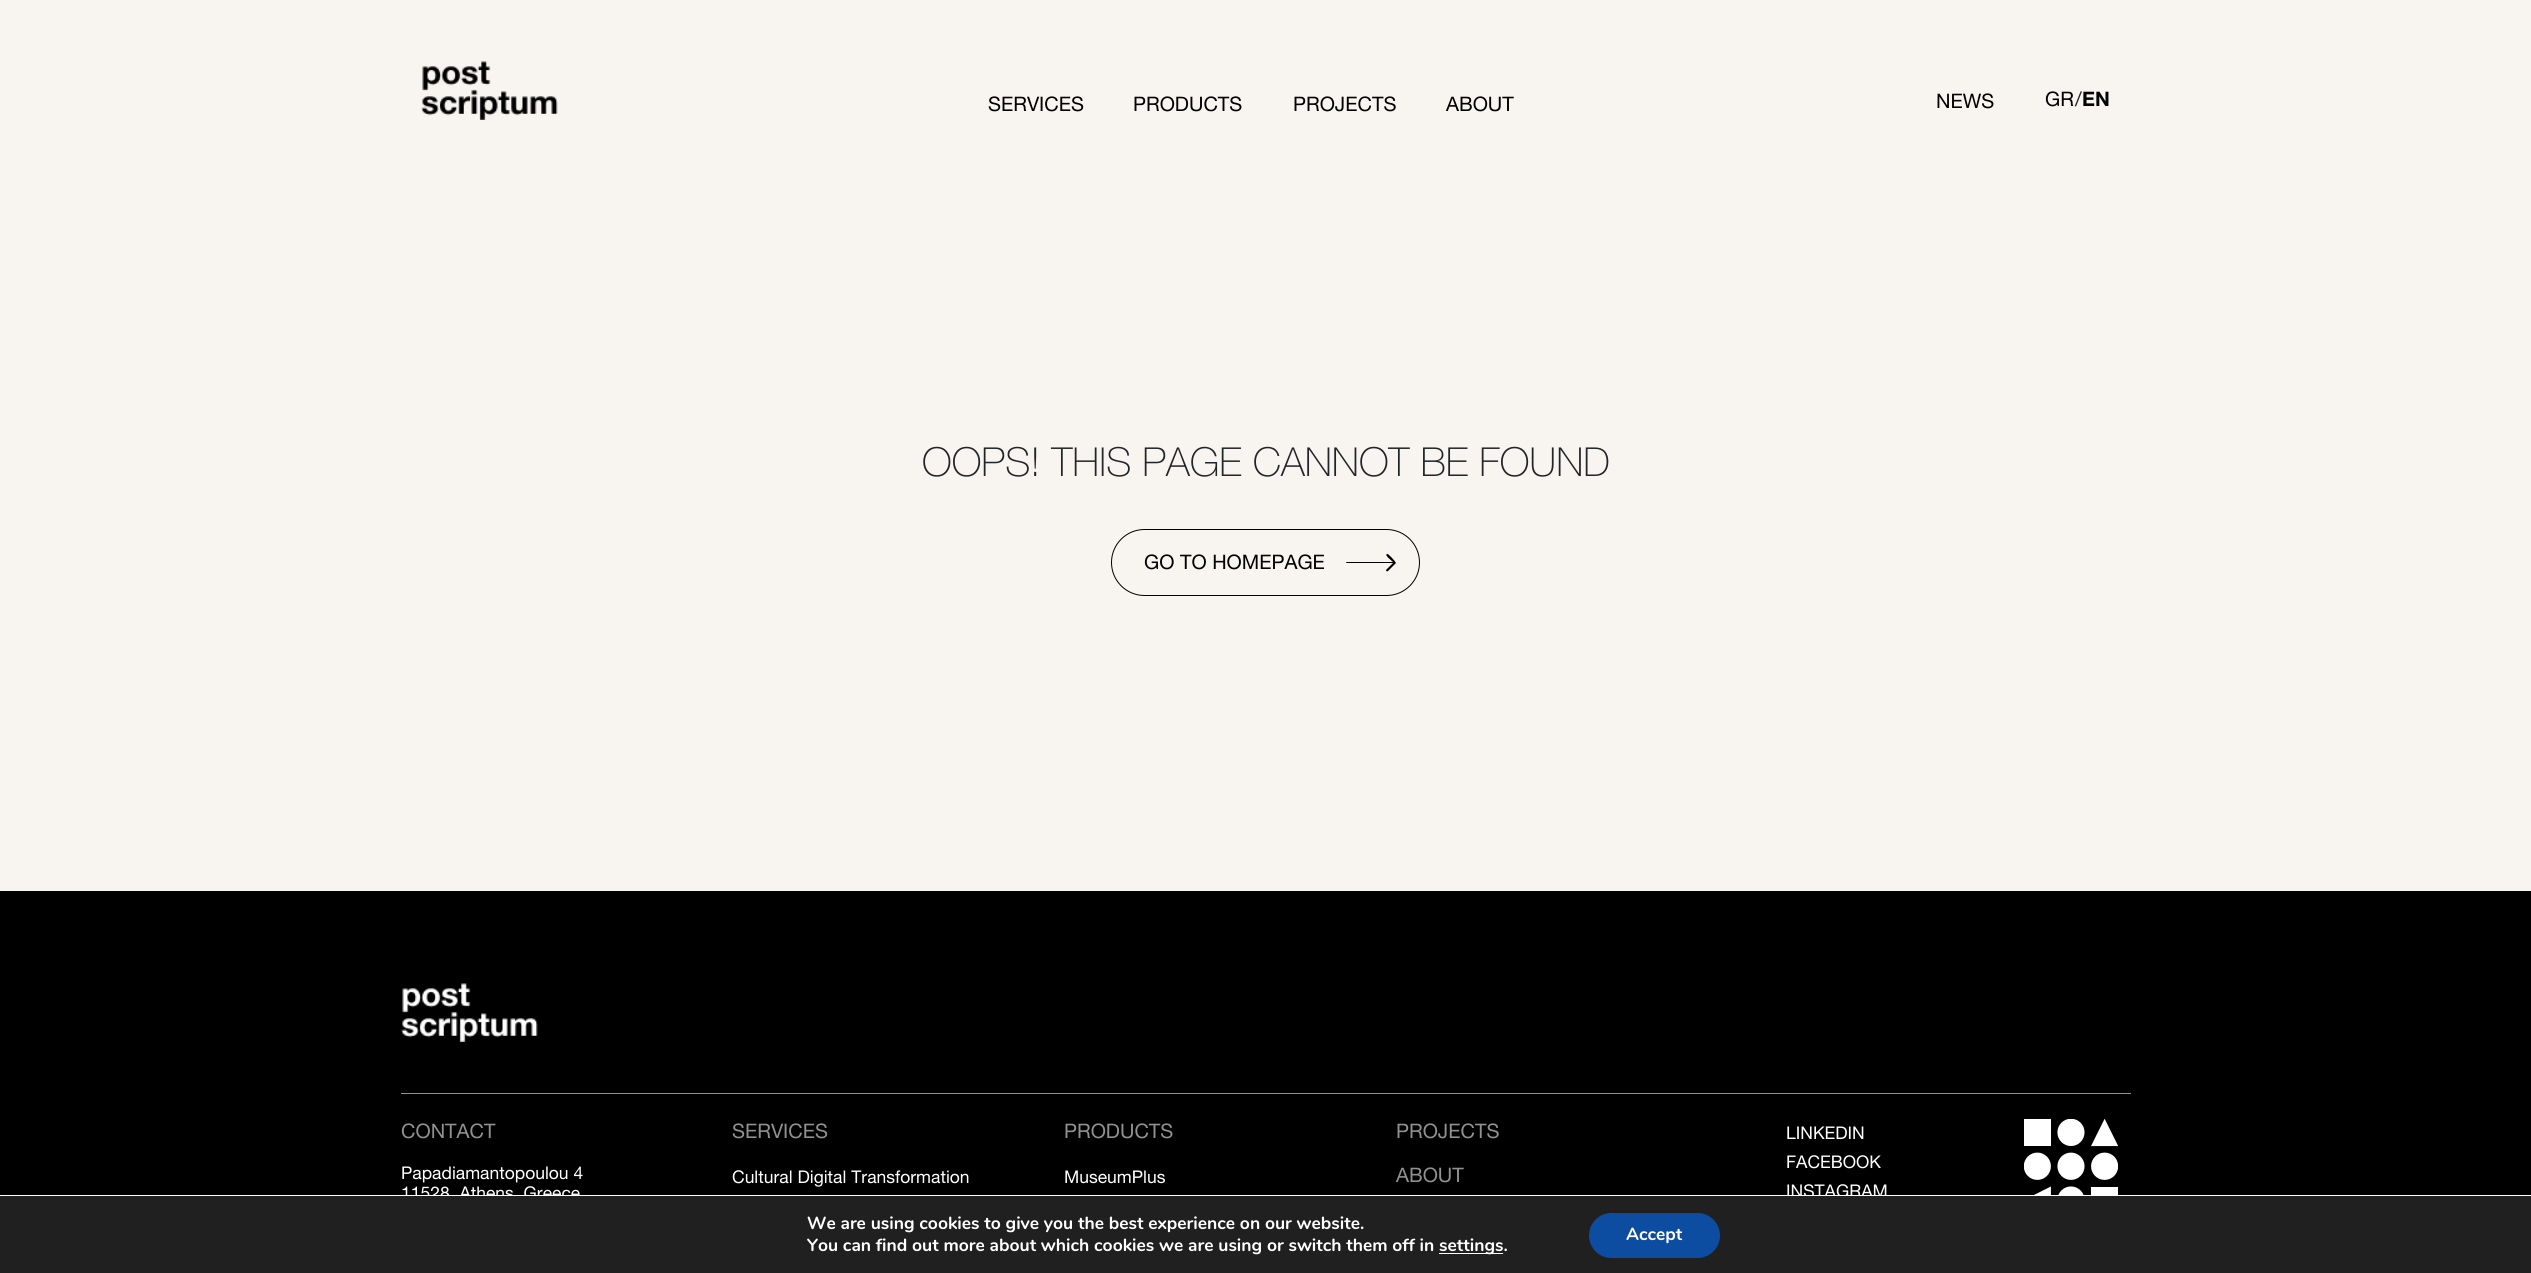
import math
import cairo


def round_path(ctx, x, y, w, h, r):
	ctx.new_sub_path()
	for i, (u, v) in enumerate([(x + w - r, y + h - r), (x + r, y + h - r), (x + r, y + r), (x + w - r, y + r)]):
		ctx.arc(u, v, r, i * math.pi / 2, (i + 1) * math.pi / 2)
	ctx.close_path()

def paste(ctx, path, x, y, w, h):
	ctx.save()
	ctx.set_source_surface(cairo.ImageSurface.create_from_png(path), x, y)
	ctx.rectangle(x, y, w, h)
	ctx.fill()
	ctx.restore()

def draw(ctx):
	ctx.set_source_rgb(0.969, 0.957, 0.937)
	ctx.paint()
	paste(ctx, 'media/1.png', 421, 61, 137, 59)
	ctx.select_font_face('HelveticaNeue')
	ctx.set_font_size(20)
	ctx.set_source_rgb(0, 0, 0)
	for x, y, s in [
		(988, 111, 'SERVICES'),
		(1133, 111, 'PRODUCTS'),
		(1293, 111, 'PROJECTS'),
		(1446, 111, 'ABOUT'),
		(1936, 108, 'NEWS'),
		(2045, 106, 'GR'),
	]:
		ctx.move_to(x, y)
		ctx.show_text(s)
	ctx.set_source_rgb(0.129, 0.145, 0.161)
	ctx.move_to(2075, 106)
	ctx.show_text('/')
	ctx.select_font_face('HelveticaNeue', cairo.FONT_SLANT_NORMAL, cairo.FONT_WEIGHT_BOLD)
	ctx.set_source_rgb(0, 0, 0)
	ctx.move_to(2082, 106)
	ctx.show_text('EN')
	ctx.select_font_face('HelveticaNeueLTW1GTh')
	ctx.set_font_size(40)
	ctx.set_source_rgb(0.129, 0.145, 0.161)
	ctx.move_to(922, 476)
	ctx.show_text('OOPS! THIS PAGE CANNOT BE FOUND')
	round_path(ctx, 1111.5, 529.5, 308, 66, 33)
	ctx.set_source_rgb(0, 0, 0)
	ctx.set_line_width(1)
	ctx.stroke()
	ctx.select_font_face('HelveticaNeue')
	ctx.set_font_size(20)
	ctx.move_to(1144, 569)
	ctx.show_text('GO TO HOMEPAGE')
	ctx.new_path()
	ctx.move_to(1388, 571)
	ctx.line_to(1396, 563)
	ctx.curve_to(1395, 561, 1388, 553, 1387, 554)
	ctx.curve_to(1384, 555, 1392, 561, 1393, 562)
	ctx.line_to(1346, 562)
	ctx.curve_to(1346, 562, 1346, 563, 1347, 563)
	ctx.line_to(1393, 563)
	ctx.line_to(1386, 570)
	ctx.curve_to(1386, 571, 1387, 572, 1388, 571)
	ctx.close_path()
	ctx.fill()
	ctx.rectangle(0, 891, 2531, 304)
	ctx.fill()
	ctx.set_source_rgb(0.569, 0.569, 0.569)
	ctx.rectangle(401, 1093, 1730, 1)
	ctx.fill()
	paste(ctx, 'media/2.png', 401, 983, 137, 59)
	ctx.move_to(401, 1138)
	ctx.show_text('CONTACT')
	ctx.set_font_size(17.5)
	ctx.set_source_rgb(1, 1, 1)
	ctx.move_to(401, 1179)
	ctx.show_text('Papadiamantopoulou 4')
	ctx.move_to(401, 1199)
	ctx.show_text('11528, Athens, Greece')
	ctx.set_font_size(20)
	ctx.set_source_rgb(0.569, 0.569, 0.569)
	ctx.move_to(732, 1138)
	ctx.show_text('SERVICES')
	ctx.set_font_size(17.5)
	ctx.set_source_rgb(1, 1, 1)
	ctx.move_to(732, 1183)
	ctx.show_text('Cultural Digital Transformation')
	ctx.set_font_size(20)
	ctx.set_source_rgb(0.569, 0.569, 0.569)
	ctx.move_to(1064, 1138)
	ctx.show_text('PRODUCTS')
	ctx.set_font_size(17.5)
	ctx.set_source_rgb(1, 1, 1)
	ctx.move_to(1064, 1183)
	ctx.show_text('MuseumPlus')
	ctx.set_font_size(20)
	ctx.set_source_rgb(0.569, 0.569, 0.569)
	ctx.move_to(1396, 1138)
	ctx.show_text('PROJECTS')
	ctx.move_to(1396, 1182)
	ctx.show_text('ABOUT')
	ctx.set_font_size(17.5)
	ctx.set_source_rgb(1, 1, 1)
	for x, y, s in [
		(1786, 1139, 'LINKEDIN'),
		(1786, 1168, 'FACEBOOK'),
		(1786, 1197, 'INSTAGRAM'),
	]:
		ctx.move_to(x, y)
		ctx.show_text(s)
	paste(ctx, 'media/3.png', 2024, 1119, 94, 76)
	ctx.set_source_rgb(0.125, 0.125, 0.125)
	ctx.rectangle(0, 1196, 2531, 77)
	ctx.fill()
	ctx.set_source_rgb(1, 1, 1)
	ctx.rectangle(0, 1195, 2531, 1)
	ctx.fill()
	ctx.select_font_face('Nunito', cairo.FONT_SLANT_NORMAL, cairo.FONT_WEIGHT_BOLD)
	ctx.move_to(807, 1229)
	ctx.show_text('We are using cookies to give you the best experience on our website.')
	ctx.move_to(807, 1251)
	ctx.show_text('You can find out more about which cookies we are using or switch them off in')
	ctx.rectangle(1439, 1253, 64, 1)
	ctx.fill()
	ctx.move_to(1439, 1251)
	ctx.show_text('settings.')
	ctx.set_source_rgb(0.047, 0.302, 0.635)
	round_path(ctx, 1589, 1213, 131, 45, 22.5)
	ctx.fill()
	ctx.set_source_rgb(1, 1, 1)
	ctx.move_to(1626, 1240)
	ctx.show_text('Accept')


surface = cairo.ImageSurface(cairo.FORMAT_RGB24, 2531, 1273)
ctx = cairo.Context(surface)
options = cairo.FontOptions()
options.set_hint_metrics(cairo.HINT_METRICS_OFF)
options.set_hint_style(cairo.HINT_STYLE_NONE)
ctx.set_font_options(options)
ctx.set_miter_limit(4)
draw(ctx)
surface.write_to_png('image.png')
